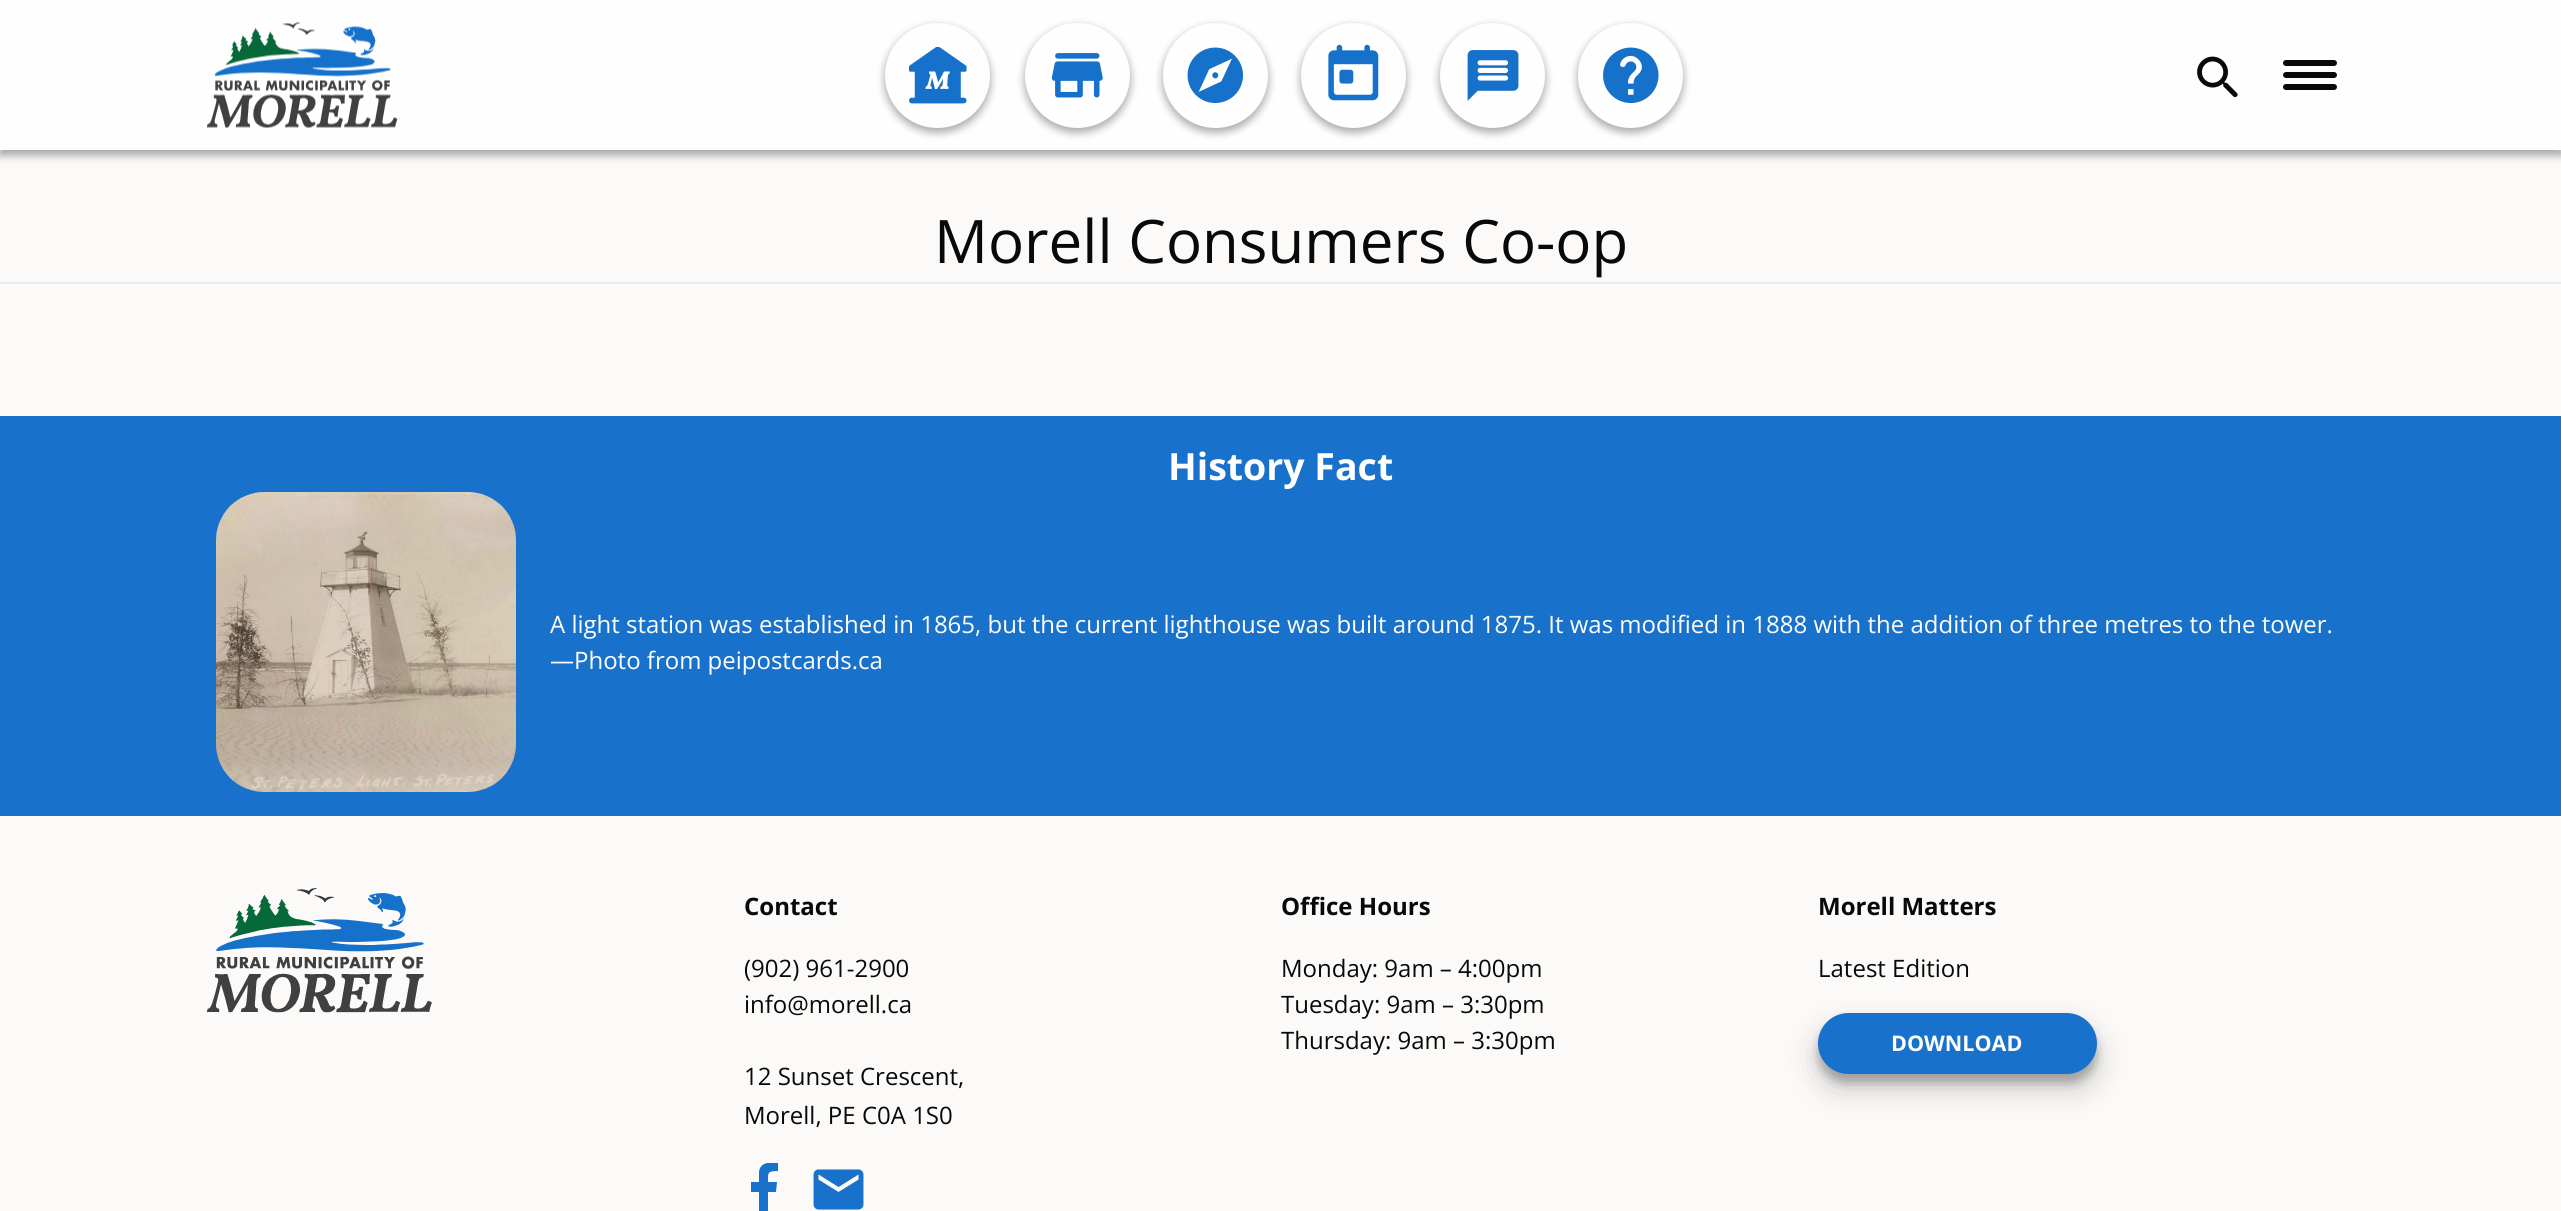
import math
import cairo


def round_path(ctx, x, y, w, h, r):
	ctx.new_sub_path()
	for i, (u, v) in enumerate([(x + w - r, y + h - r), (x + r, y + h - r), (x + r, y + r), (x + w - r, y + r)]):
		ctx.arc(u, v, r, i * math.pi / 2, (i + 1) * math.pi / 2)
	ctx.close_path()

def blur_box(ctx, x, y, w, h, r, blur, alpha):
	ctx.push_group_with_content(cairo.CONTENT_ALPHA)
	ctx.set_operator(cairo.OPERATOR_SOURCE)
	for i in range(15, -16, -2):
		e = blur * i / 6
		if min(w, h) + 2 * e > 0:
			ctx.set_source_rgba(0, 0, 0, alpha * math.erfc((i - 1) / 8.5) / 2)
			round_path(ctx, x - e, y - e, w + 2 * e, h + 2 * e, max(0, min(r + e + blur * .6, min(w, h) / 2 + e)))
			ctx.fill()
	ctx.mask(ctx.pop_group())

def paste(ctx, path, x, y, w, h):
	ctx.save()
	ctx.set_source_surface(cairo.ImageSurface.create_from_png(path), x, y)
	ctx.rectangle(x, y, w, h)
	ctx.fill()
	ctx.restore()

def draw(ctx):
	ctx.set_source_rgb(0.984, 0.98, 0.969)
	ctx.paint()
	ctx.set_source_rgb(0, 0, 0)
	blur_box(ctx, 0, 5, 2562, 150, 0, 4.5, 0.23)
	blur_box(ctx, 0, 5, 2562, 150, 0, 4.5, 0.16)
	ctx.set_source_rgb(0.996, 0.996, 0.996)
	ctx.rectangle(0, 0, 2561, 150)
	ctx.fill()
	paste(ctx, 'media/1.png', 207, 22, 191, 106)
	ctx.set_source_rgb(0, 0, 0)
	blur_box(ctx, 885, 27, 105, 105, 52.5, 4.5, 0.23)
	blur_box(ctx, 885, 27, 105, 105, 52.5, 4.5, 0.16)
	ctx.set_source_rgb(0.996, 0.996, 0.996)
	ctx.arc(937.5, 75.5, 52.5, 0, 2 * math.pi)
	ctx.fill()
	paste(ctx, 'media/2.png', 909, 47, 58, 57)
	ctx.set_source_rgb(0, 0, 0)
	blur_box(ctx, 1025, 27, 105, 105, 52.5, 4.5, 0.23)
	blur_box(ctx, 1025, 27, 105, 105, 52.5, 4.5, 0.16)
	ctx.set_source_rgb(0.996, 0.996, 0.996)
	ctx.arc(1077.5, 75.5, 52.5, 0, 2 * math.pi)
	ctx.fill()
	paste(ctx, 'media/3.png', 1051, 53, 52, 45)
	ctx.set_source_rgb(0, 0, 0)
	blur_box(ctx, 1163, 27, 105, 105, 52.5, 4.5, 0.23)
	blur_box(ctx, 1163, 27, 105, 105, 52.5, 4.5, 0.16)
	ctx.set_source_rgb(0.996, 0.996, 0.996)
	ctx.arc(1215.5, 75.5, 52.5, 0, 2 * math.pi)
	ctx.fill()
	paste(ctx, 'media/4.png', 1187, 47, 56, 56)
	ctx.set_source_rgb(0, 0, 0)
	blur_box(ctx, 1301, 27, 105, 105, 52.5, 4.5, 0.23)
	blur_box(ctx, 1301, 27, 105, 105, 52.5, 4.5, 0.16)
	ctx.set_source_rgb(0.996, 0.996, 0.996)
	ctx.arc(1353.5, 75.5, 52.5, 0, 2 * math.pi)
	ctx.fill()
	paste(ctx, 'media/5.png', 1328, 44, 51, 57)
	ctx.set_source_rgb(0, 0, 0)
	blur_box(ctx, 1440, 27, 105, 105, 52.5, 4.5, 0.23)
	blur_box(ctx, 1440, 27, 105, 105, 52.5, 4.5, 0.16)
	ctx.set_source_rgb(0.996, 0.996, 0.996)
	ctx.arc(1492.5, 75.5, 52.5, 0, 2 * math.pi)
	ctx.fill()
	paste(ctx, 'media/6.png', 1467, 50, 52, 51)
	ctx.set_source_rgb(0, 0, 0)
	blur_box(ctx, 1578, 27, 105, 105, 52.5, 4.5, 0.23)
	blur_box(ctx, 1578, 27, 105, 105, 52.5, 4.5, 0.16)
	ctx.set_source_rgb(0.996, 0.996, 0.996)
	ctx.arc(1630.5, 75.5, 52.5, 0, 2 * math.pi)
	ctx.fill()
	paste(ctx, 'media/7.png', 1603, 47, 56, 57)
	paste(ctx, 'media/8.png', 2197, 56, 41, 42)
	ctx.set_source_rgb(0.039, 0.039, 0.039)
	round_path(ctx, 2283, 60, 54, 6, 3)
	ctx.fill()
	round_path(ctx, 2283, 72, 54, 6, 3)
	ctx.fill()
	round_path(ctx, 2283, 84, 54, 6, 3)
	ctx.fill()
	ctx.set_source_rgb(0.918, 0.918, 0.918)
	ctx.rectangle(0, 282, 2561, 2)
	ctx.fill()
	ctx.select_font_face('Open Sans')
	ctx.set_font_size(60)
	ctx.set_source_rgb(0.039, 0.039, 0.039)
	ctx.move_to(934, 263)
	ctx.show_text('Morell Consumers Co-op')
	ctx.set_source_rgb(0.094, 0.443, 0.796)
	ctx.rectangle(0, 416, 2561, 400)
	ctx.fill()
	ctx.select_font_face('Open Sans', cairo.FONT_SLANT_NORMAL, cairo.FONT_WEIGHT_BOLD)
	ctx.set_font_size(37.5)
	ctx.set_source_rgb(0.996, 0.996, 0.996)
	ctx.move_to(1168, 480)
	ctx.show_text('History Fact')
	paste(ctx, 'media/9.png', 216, 492, 300, 300)
	ctx.select_font_face('Open Sans')
	ctx.set_font_size(24)
	ctx.move_to(550, 633)
	ctx.show_text('A light station was established in 1865, but the current lighthouse was built around 1875. It was modified in 1888 with the addition of three metres to the tower.')
	ctx.move_to(550, 669)
	ctx.show_text('—Photo from peipostcards.ca')
	paste(ctx, 'media/10.png', 207, 888, 225, 125)
	ctx.select_font_face('Open Sans', cairo.FONT_SLANT_NORMAL, cairo.FONT_WEIGHT_BOLD)
	ctx.set_source_rgb(0.039, 0.039, 0.039)
	ctx.move_to(744, 915)
	ctx.show_text('Contact')
	ctx.select_font_face('Open Sans')
	for x, y, s in [
		(744, 977, '(902) 961-2900'),
		(744, 1013, 'info@morell.ca'),
		(744, 1085, '12 Sunset Crescent,'),
		(744, 1124, 'Morell, PE C0A 1S0'),
	]:
		ctx.move_to(x, y)
		ctx.show_text(s)
	ctx.save()
	ctx.rectangle(744, 1163, 41, 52)
	ctx.clip()
	ctx.set_source_rgb(0.094, 0.443, 0.796)
	ctx.new_path()
	ctx.move_to(759, 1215)
	ctx.line_to(768, 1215)
	ctx.line_to(768, 1192)
	ctx.line_to(776, 1192)
	ctx.line_to(777, 1182)
	ctx.line_to(768, 1182)
	ctx.curve_to(768, 1173, 767, 1171, 778, 1171)
	ctx.line_to(778, 1163)
	ctx.curve_to(770, 1162, 760, 1162, 759, 1172)
	ctx.line_to(759, 1182)
	ctx.line_to(751, 1182)
	ctx.line_to(751, 1192)
	ctx.line_to(759, 1192)
	ctx.close_path()
	ctx.fill()
	ctx.restore()
	paste(ctx, 'media/11.png', 813, 1169, 51, 41)
	ctx.select_font_face('Open Sans', cairo.FONT_SLANT_NORMAL, cairo.FONT_WEIGHT_BOLD)
	ctx.move_to(1281, 915)
	ctx.show_text('Office Hours')
	ctx.select_font_face('Open Sans')
	for x, y, s in [
		(1281, 977, 'Monday: 9am – 4:00pm'),
		(1281, 1013, 'Tuesday: 9am – 3:30pm'),
		(1281, 1049, 'Thursday: 9am – 3:30pm'),
	]:
		ctx.move_to(x, y)
		ctx.show_text(s)
	ctx.select_font_face('Open Sans', cairo.FONT_SLANT_NORMAL, cairo.FONT_WEIGHT_BOLD)
	ctx.move_to(1818, 915)
	ctx.show_text('Morell Matters')
	ctx.select_font_face('Open Sans')
	ctx.move_to(1818, 977)
	ctx.show_text('Latest Edition')
	ctx.set_source_rgb(0, 0, 0)
	blur_box(ctx, 1818, 1022, 279, 61, 30.5, 4.5, 0.23)
	blur_box(ctx, 1818, 1028, 279, 61, 30.5, 15, 0.19)
	ctx.set_source_rgb(0.094, 0.443, 0.796)
	round_path(ctx, 1818, 1013, 279, 61, 30.5)
	ctx.fill()
	ctx.select_font_face('Open Sans', cairo.FONT_SLANT_NORMAL, cairo.FONT_WEIGHT_BOLD)
	ctx.set_font_size(21.5)
	ctx.set_source_rgb(0.996, 0.996, 0.996)
	ctx.move_to(1891, 1051)
	ctx.show_text('DOWNLOAD')


surface = cairo.ImageSurface(cairo.FORMAT_RGB24, 2561, 1211)
ctx = cairo.Context(surface)
options = cairo.FontOptions()
options.set_hint_metrics(cairo.HINT_METRICS_OFF)
options.set_hint_style(cairo.HINT_STYLE_NONE)
ctx.set_font_options(options)
ctx.set_miter_limit(4)
draw(ctx)
surface.write_to_png('image.png')
